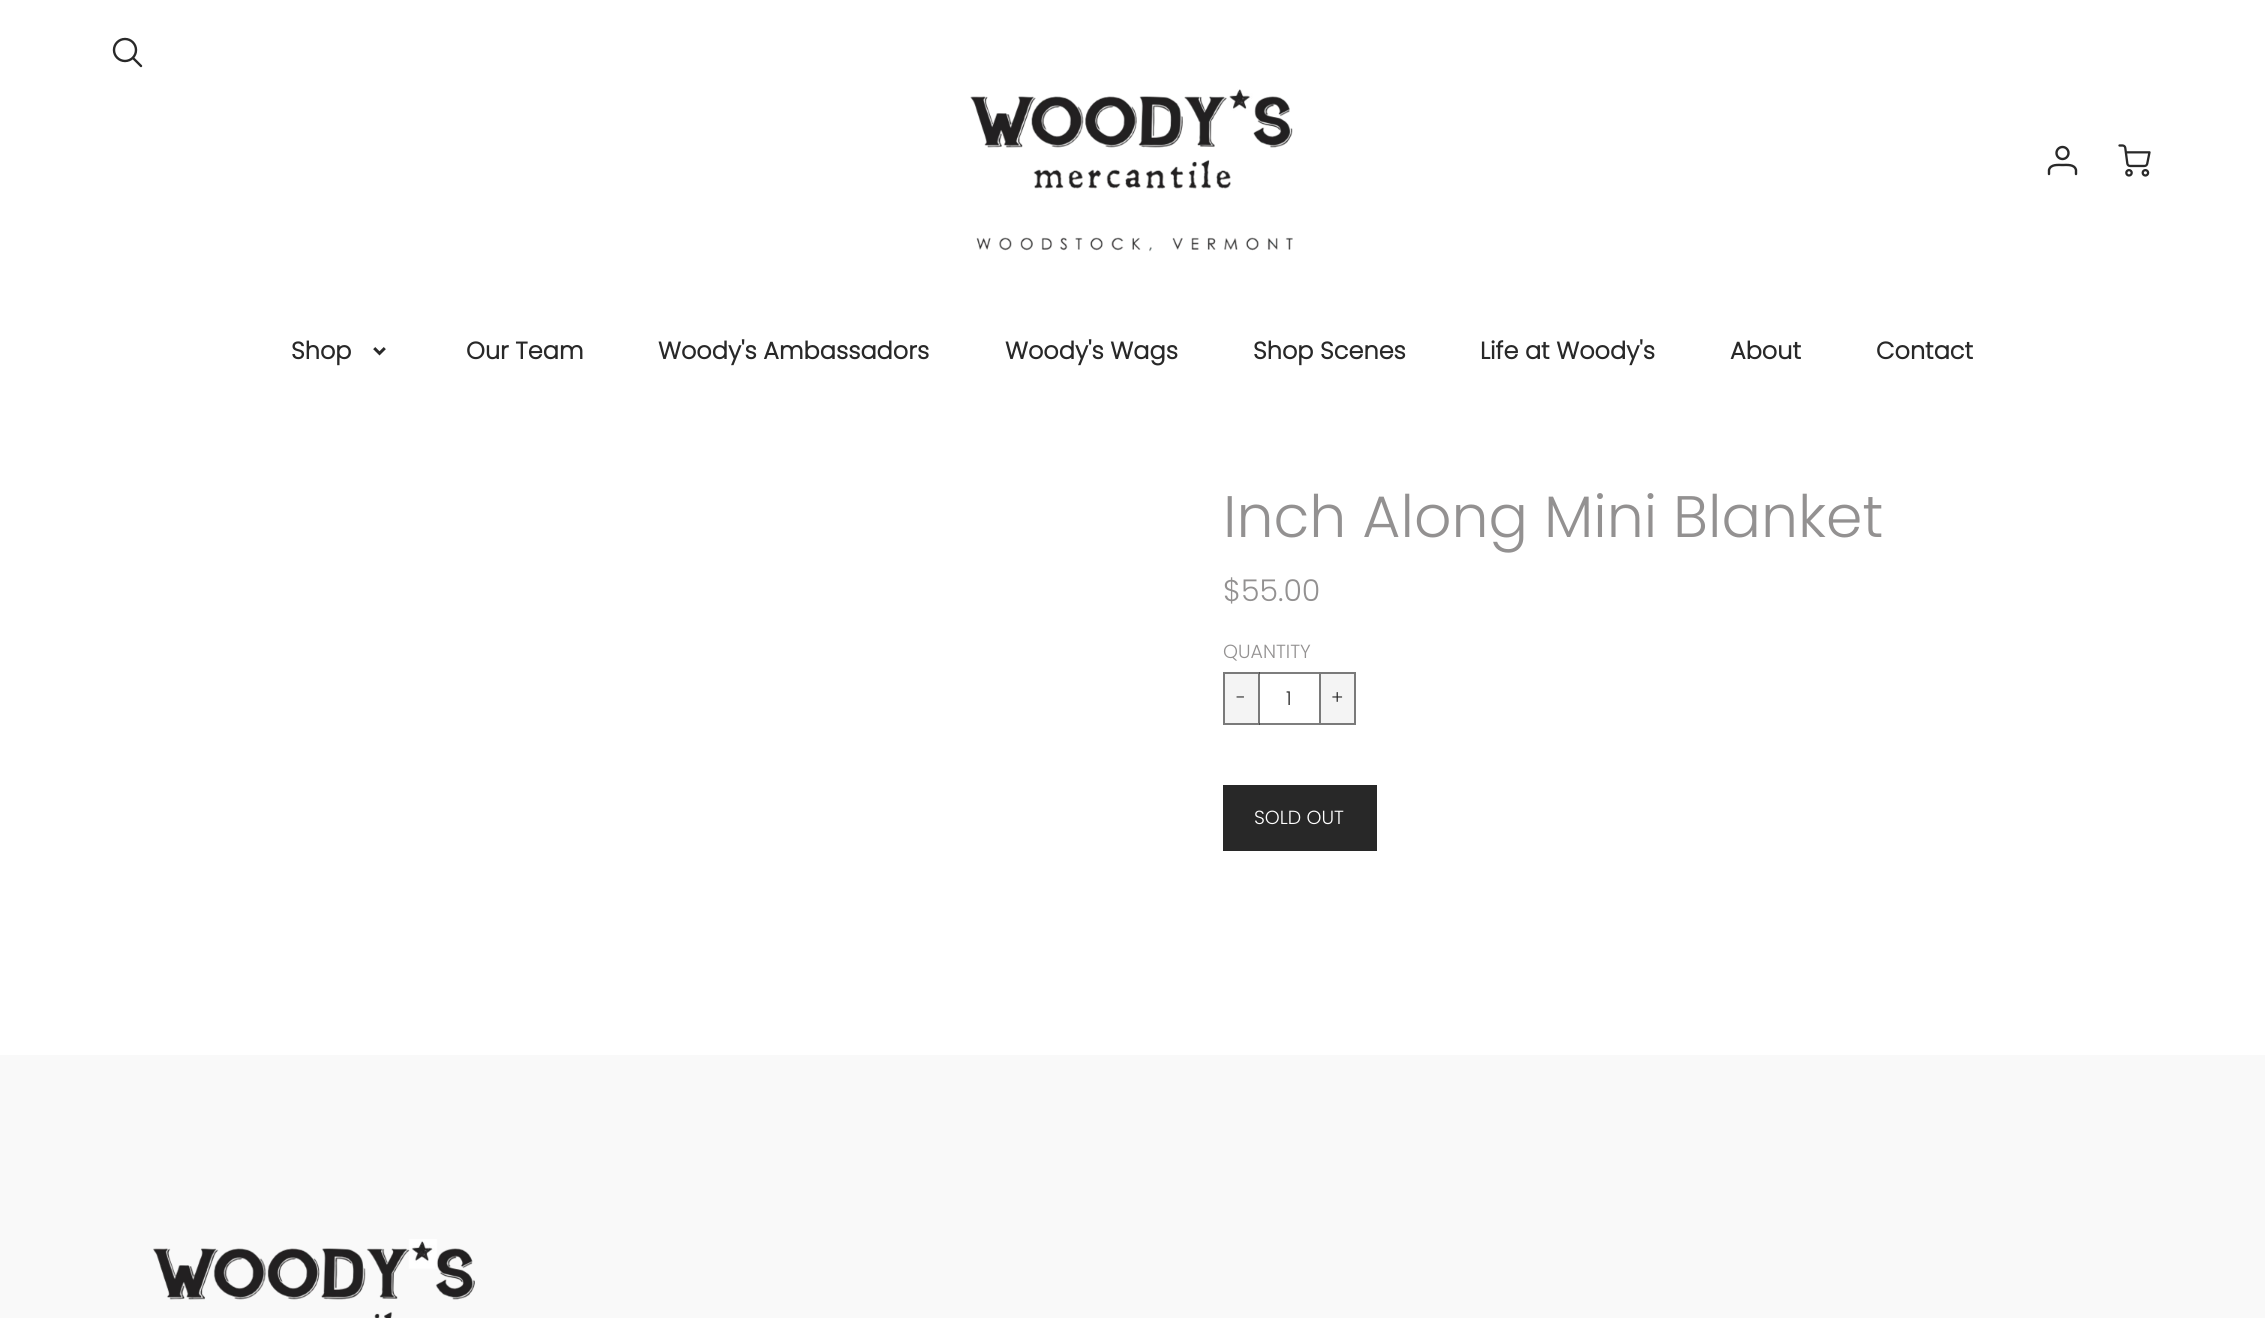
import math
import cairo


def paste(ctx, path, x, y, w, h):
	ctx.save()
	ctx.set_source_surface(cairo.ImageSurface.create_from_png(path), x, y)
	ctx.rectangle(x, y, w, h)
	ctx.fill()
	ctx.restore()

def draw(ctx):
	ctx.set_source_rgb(0.973, 0.973, 0.973)
	ctx.paint()
	ctx.set_source_rgb(1, 1, 1)
	ctx.rectangle(0, 0, 2265, 1055)
	ctx.fill()
	ctx.arc(125, 50, 11, 0, 2 * math.pi)
	ctx.set_source_rgb(0.161, 0.161, 0.161)
	ctx.set_line_width(2.4)
	ctx.stroke()
	ctx.new_path()
	ctx.move_to(141, 66)
	ctx.line_to(133.5, 58.5)
	ctx.set_line_cap(cairo.LINE_CAP_ROUND)
	ctx.set_line_join(cairo.LINE_JOIN_ROUND)
	ctx.stroke()
	paste(ctx, 'media/1.png', 970, 89, 323, 163)
	ctx.arc(2062.5, 153, 6, 0, 2 * math.pi)
	ctx.set_line_cap(cairo.LINE_CAP_BUTT)
	ctx.set_line_join(cairo.LINE_JOIN_MITER)
	ctx.stroke()
	ctx.new_path()
	ctx.move_to(2076, 174)
	ctx.line_to(2076, 170)
	ctx.curve_to(2074.5, 164, 2067, 165, 2062.5, 165)
	ctx.curve_to(2058, 165, 2050.5, 164, 2049, 170)
	ctx.line_to(2049, 174)
	ctx.set_line_cap(cairo.LINE_CAP_ROUND)
	ctx.set_line_join(cairo.LINE_JOIN_ROUND)
	ctx.stroke()
	paste(ctx, 'media/2.png', 2118, 144, 33, 33)
	ctx.select_font_face('Poppins', cairo.FONT_SLANT_NORMAL, cairo.FONT_WEIGHT_BOLD)
	ctx.set_font_size(24)
	ctx.set_source_rgb(0.157, 0.157, 0.157)
	ctx.move_to(291, 359)
	ctx.show_text('Shop')
	paste(ctx, 'media/3.png', 373, 347, 13, 9)
	for x, y, s in [
		(466, 359, 'Our Team'),
		(658, 359, 'Woody\'s Ambassadors'),
		(1005, 359, 'Woody\'s Wags'),
		(1253, 359, 'Shop Scenes'),
		(1480, 359, 'Life at Woody\'s'),
		(1730, 359, 'About'),
		(1876, 359, 'Contact'),
	]:
		ctx.move_to(x, y)
		ctx.show_text(s)
	ctx.set_source_rgb(0.957, 0.957, 0.957)
	ctx.rectangle(1223, 672, 37, 53)
	ctx.fill()
	ctx.select_font_face('Poppins Light')
	ctx.set_font_size(58.5)
	ctx.set_source_rgb(0.576, 0.569, 0.569)
	ctx.move_to(1223, 537)
	ctx.show_text('Inch Along Mini Blanket')
	ctx.set_font_size(30)
	ctx.move_to(1223, 601)
	ctx.show_text('$55.00')
	ctx.set_font_size(19)
	ctx.move_to(1223, 658)
	ctx.show_text('QUANTITY')
	ctx.set_source_rgb(0.494, 0.494, 0.494)
	ctx.rectangle(1259, 672, 60, 2)
	ctx.fill()
	ctx.set_source_rgb(0.478, 0.478, 0.478)
	ctx.rectangle(1259, 672, 1, 2)
	ctx.fill()
	ctx.set_source_rgb(0.494, 0.494, 0.494)
	ctx.rectangle(1259, 723, 60, 2)
	ctx.fill()
	ctx.set_source_rgb(0.478, 0.478, 0.478)
	ctx.rectangle(1259, 723, 1, 2)
	ctx.fill()
	ctx.rectangle(1224, 673, 35, 51)
	ctx.set_source_rgba(0.157, 0.157, 0.157, 0.6)
	ctx.set_line_width(2)
	ctx.set_line_cap(cairo.LINE_CAP_BUTT)
	ctx.set_line_join(cairo.LINE_JOIN_MITER)
	ctx.stroke()
	ctx.set_source_rgb(0.157, 0.157, 0.157)
	ctx.move_to(1236, 704)
	ctx.show_text('-')
	ctx.move_to(1286, 705)
	ctx.show_text('1')
	ctx.set_source_rgb(0.957, 0.957, 0.957)
	ctx.rectangle(1320, 673, 35, 51)
	ctx.fill_preserve()
	ctx.set_source_rgb(0.478, 0.478, 0.478)
	ctx.stroke()
	ctx.set_source_rgb(0.157, 0.157, 0.157)
	ctx.move_to(1331, 704)
	ctx.show_text('+')
	ctx.rectangle(1223, 785, 154, 66)
	ctx.fill()
	ctx.set_source_rgb(1, 1, 1)
	ctx.move_to(1254, 824)
	ctx.show_text('SOLD OUT')
	paste(ctx, 'media/4.png', 153, 1239, 322, 79)


surface = cairo.ImageSurface(cairo.FORMAT_RGB24, 2265, 1318)
ctx = cairo.Context(surface)
options = cairo.FontOptions()
options.set_hint_metrics(cairo.HINT_METRICS_OFF)
options.set_hint_style(cairo.HINT_STYLE_NONE)
ctx.set_font_options(options)
ctx.set_miter_limit(4)
draw(ctx)
surface.write_to_png('image.png')
